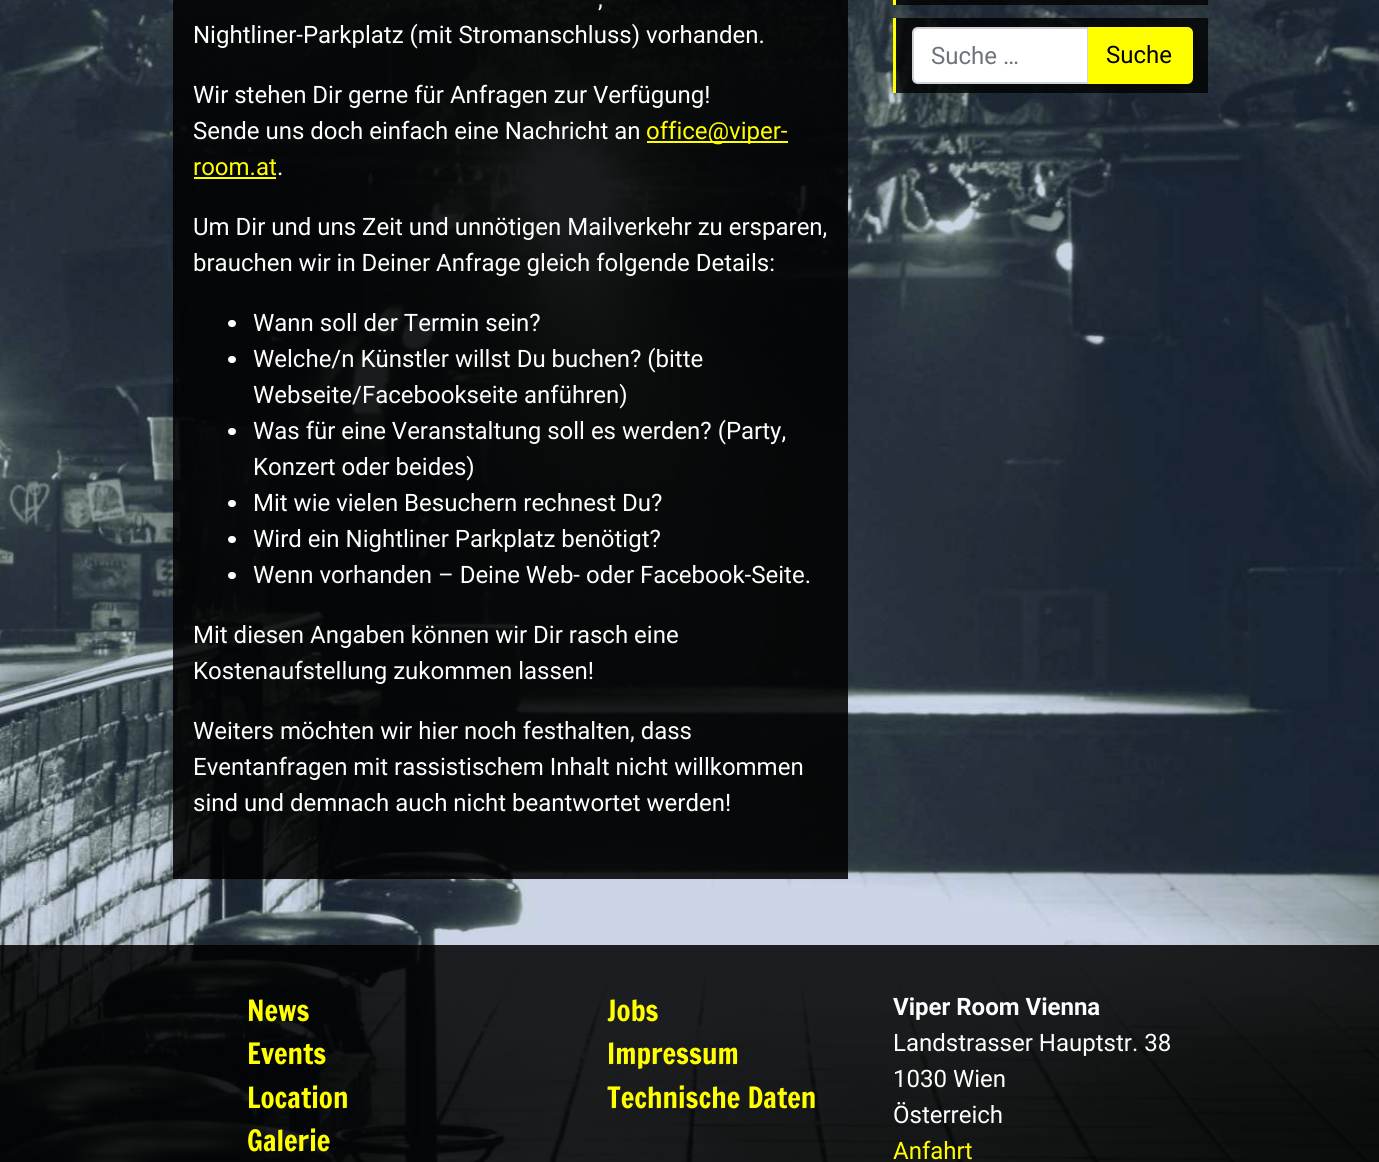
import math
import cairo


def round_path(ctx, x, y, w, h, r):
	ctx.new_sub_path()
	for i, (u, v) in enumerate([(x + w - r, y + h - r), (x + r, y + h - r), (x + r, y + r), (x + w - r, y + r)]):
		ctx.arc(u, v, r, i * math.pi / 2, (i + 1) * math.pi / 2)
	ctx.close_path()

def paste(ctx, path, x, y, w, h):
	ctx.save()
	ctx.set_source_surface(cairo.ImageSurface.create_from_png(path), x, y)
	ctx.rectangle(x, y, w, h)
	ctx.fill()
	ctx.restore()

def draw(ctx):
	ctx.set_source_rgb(1, 1, 1)
	ctx.paint()
	paste(ctx, 'media/1.png', 0, 0, 1379, 1162)
	ctx.set_source_rgba(0, 0, 0, 0.87)
	ctx.rectangle(173, 0, 675, 879)
	ctx.fill()
	ctx.select_font_face('Roboto')
	ctx.set_font_size(24)
	ctx.set_source_rgb(1, 1, 1)
	for x, y, s in [
		(598, 7, ','),
		(193, 43, 'Nightliner-Parkplatz (mit Stromanschluss) vorhanden.'),
		(193, 103, 'Wir stehen Dir gerne für Anfragen zur Verfügung!'),
		(193, 139, 'Sende uns doch einfach eine Nachricht an'),
	]:
		ctx.move_to(x, y)
		ctx.show_text(s)
	ctx.set_source_rgb(1, 1, 0)
	ctx.rectangle(647, 141, 141, 2)
	ctx.fill()
	ctx.move_to(646, 139)
	ctx.show_text('office@viper-')
	ctx.move_to(193, 175)
	ctx.show_text('room.at')
	ctx.rectangle(194, 177, 82, 2)
	ctx.fill()
	ctx.set_source_rgb(1, 1, 1)
	for x, y, s in [
		(277, 175, '.'),
		(193, 235, 'Um Dir und uns Zeit und unnötigen Mailverkehr zu ersparen,'),
		(193, 271, 'brauchen wir in Deiner Anfrage gleich folgende Details:'),
	]:
		ctx.move_to(x, y)
		ctx.show_text(s)
	round_path(ctx, 228, 320, 8, 7, 3.5)
	ctx.fill()
	ctx.move_to(253, 331)
	ctx.show_text('Wann soll der Termin sein?')
	round_path(ctx, 228, 356, 8, 7, 3.5)
	ctx.fill()
	ctx.move_to(253, 367)
	ctx.show_text('Welche/n Künstler willst Du buchen? (bitte')
	ctx.move_to(253, 403)
	ctx.show_text('Webseite/Facebookseite anführen)')
	round_path(ctx, 228, 428, 8, 7, 3.5)
	ctx.fill()
	ctx.move_to(253, 439)
	ctx.show_text('Was für eine Veranstaltung soll es werden? (Party,')
	ctx.move_to(253, 475)
	ctx.show_text('Konzert oder beides)')
	round_path(ctx, 228, 500, 8, 7, 3.5)
	ctx.fill()
	ctx.move_to(253, 511)
	ctx.show_text('Mit wie vielen Besuchern rechnest Du?')
	round_path(ctx, 228, 536, 8, 7, 3.5)
	ctx.fill()
	ctx.move_to(253, 547)
	ctx.show_text('Wird ein Nightliner Parkplatz benötigt?')
	round_path(ctx, 228, 572, 8, 7, 3.5)
	ctx.fill()
	for x, y, s in [
		(253, 583, 'Wenn vorhanden – Deine Web- oder Facebook-Seite.'),
		(193, 643, 'Mit diesen Angaben können wir Dir rasch eine'),
		(193, 679, 'Kostenaufstellung zukommen lassen!'),
		(193, 739, 'Weiters möchten wir hier noch festhalten, dass'),
		(193, 775, 'Eventanfragen mit rassistischem Inhalt nicht willkommen'),
		(193, 811, 'sind und demnach auch nicht beantwortet werden!'),
	]:
		ctx.move_to(x, y)
		ctx.show_text(s)
	ctx.set_source_rgba(0, 0, 0, 0.8)
	ctx.rectangle(893, 0, 315, 5)
	ctx.fill()
	ctx.set_source_rgb(1, 1, 0)
	ctx.rectangle(893, 0, 3, 5)
	ctx.fill()
	ctx.set_source_rgba(0, 0, 0, 0.8)
	ctx.rectangle(896, 18, 312, 75)
	ctx.fill()
	ctx.set_source_rgb(1, 1, 0)
	ctx.rectangle(893, 18, 3, 75)
	ctx.fill()
	ctx.set_source_rgb(1, 1, 1)
	ctx.new_path()
	ctx.move_to(918, 28)
	ctx.line_to(1088, 28)
	ctx.line_to(1088, 83)
	ctx.line_to(918, 83)
	ctx.curve_to(915, 83, 913, 81, 913, 78)
	ctx.line_to(913, 33)
	ctx.curve_to(913, 30, 915, 28, 918, 28)
	ctx.close_path()
	ctx.fill_preserve()
	ctx.set_source_rgb(0.808, 0.831, 0.855)
	ctx.stroke()
	ctx.set_source_rgb(0.424, 0.459, 0.49)
	ctx.move_to(931, 64)
	ctx.show_text('Suche …')
	ctx.set_source_rgb(1, 1, 0)
	ctx.new_path()
	ctx.move_to(1089, 28)
	ctx.line_to(1187, 28)
	ctx.curve_to(1190, 28, 1192, 30, 1192, 33)
	ctx.line_to(1192, 78)
	ctx.curve_to(1192, 81, 1190, 83, 1187, 83)
	ctx.line_to(1089, 83)
	ctx.close_path()
	ctx.fill_preserve()
	ctx.stroke()
	ctx.set_source_rgb(0, 0, 0)
	ctx.move_to(1106, 63)
	ctx.show_text('Suche')
	ctx.set_source_rgba(0, 0, 0, 0.86)
	ctx.rectangle(0, 945, 1379, 217)
	ctx.fill()
	ctx.select_font_face('Francois One')
	ctx.set_font_size(28.75)
	ctx.set_source_rgb(1, 1, 0)
	for x, y, s in [
		(247, 1021, 'News'),
		(247, 1064, 'Events'),
		(247, 1108, 'Location'),
		(247, 1151, 'Galerie'),
		(607, 1021, 'Jobs'),
		(607, 1064, 'Impressum'),
		(607, 1108, 'Technische Daten'),
	]:
		ctx.move_to(x, y)
		ctx.show_text(s)
	ctx.select_font_face('Roboto', cairo.FONT_SLANT_NORMAL, cairo.FONT_WEIGHT_BOLD)
	ctx.set_font_size(24)
	ctx.set_source_rgb(1, 1, 1)
	ctx.move_to(893, 1015)
	ctx.show_text('Viper Room Vienna')
	ctx.select_font_face('Roboto')
	for x, y, s in [
		(893, 1051, 'Landstrasser Hauptstr. 38'),
		(893, 1087, '1030 Wien'),
		(893, 1123, 'Österreich'),
	]:
		ctx.move_to(x, y)
		ctx.show_text(s)
	ctx.set_source_rgb(1, 1, 0)
	ctx.move_to(893, 1159)
	ctx.show_text('Anfahrt')


surface = cairo.ImageSurface(cairo.FORMAT_RGB24, 1379, 1162)
ctx = cairo.Context(surface)
options = cairo.FontOptions()
options.set_hint_metrics(cairo.HINT_METRICS_OFF)
options.set_hint_style(cairo.HINT_STYLE_NONE)
ctx.set_font_options(options)
ctx.set_miter_limit(4)
draw(ctx)
surface.write_to_png('image.png')
